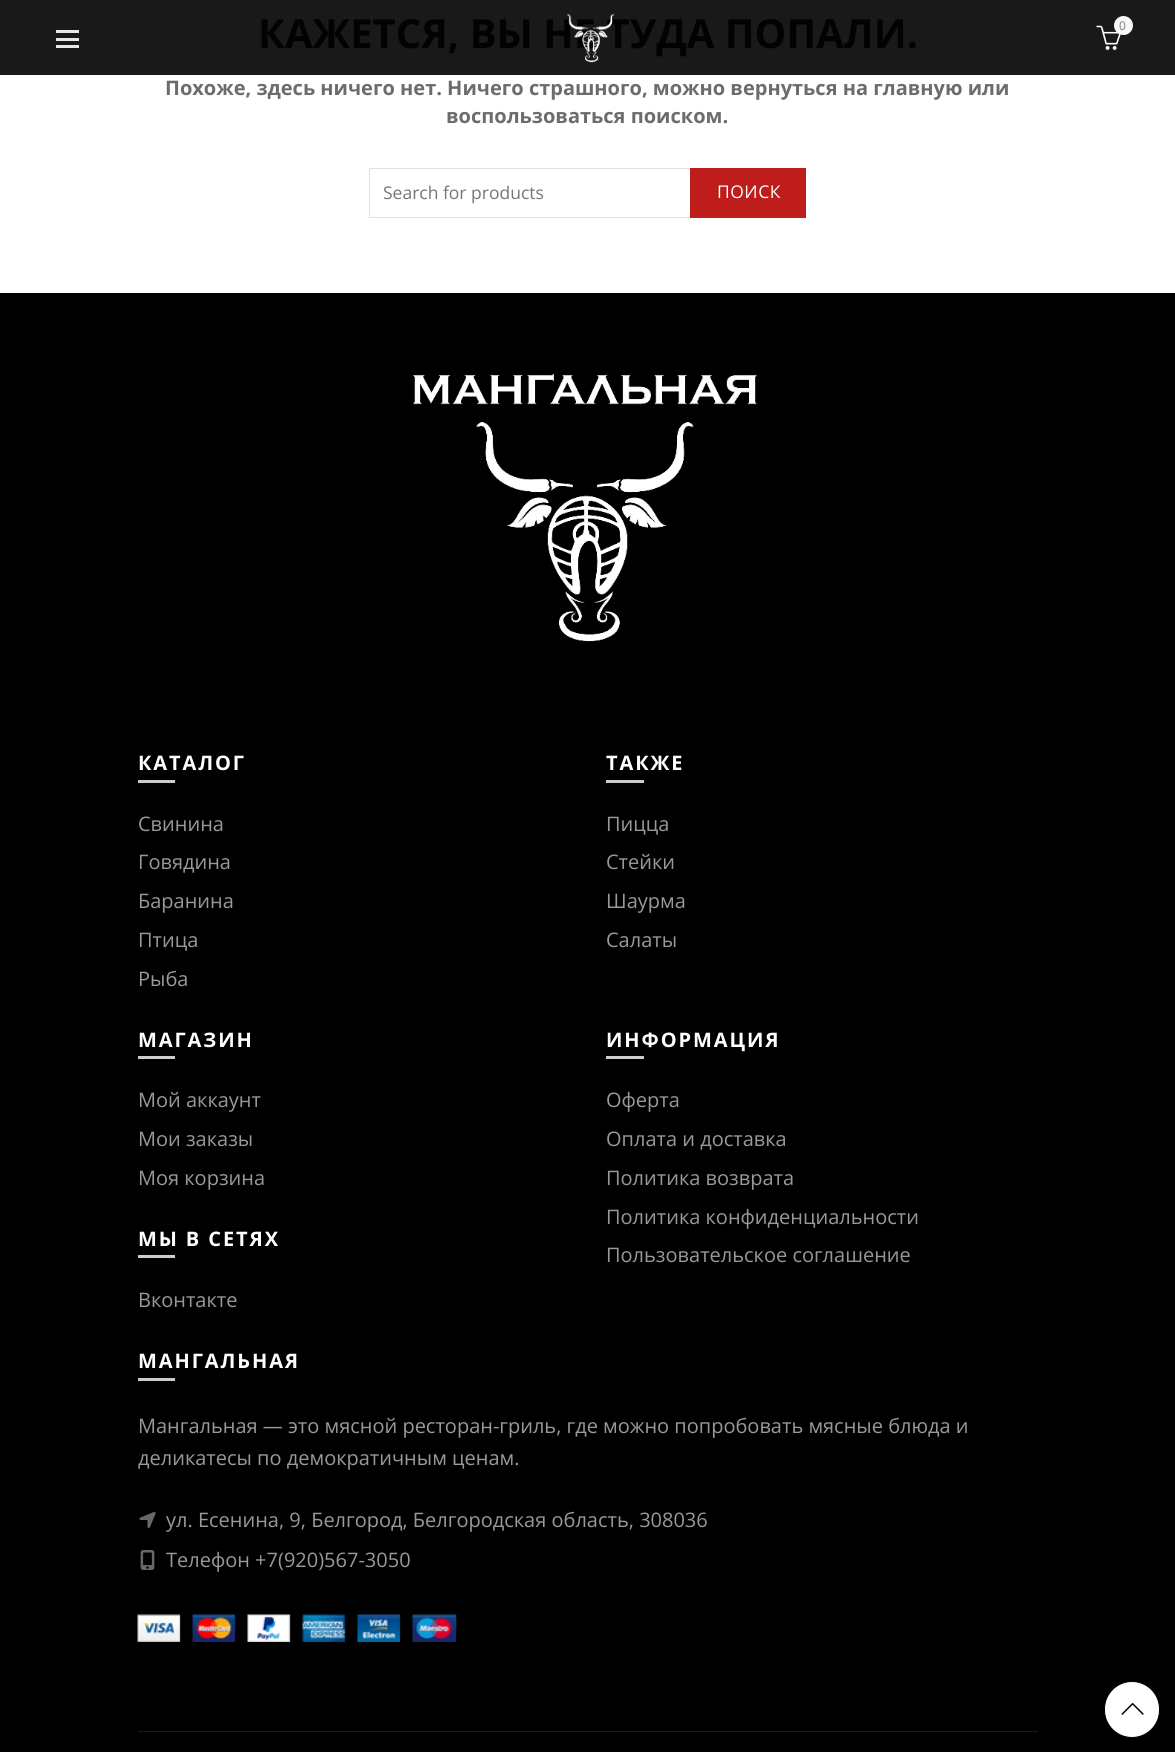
import math
import cairo


def write_spaced(ctx, x, y, s, letter, word):
	ctx.move_to(x, y)
	for ch in s:
		ctx.show_text(ch)
		ctx.rel_move_to(letter + word * (ch == ' '), 0)

def round_path(ctx, x, y, w, h, r):
	ctx.new_sub_path()
	for i, (u, v) in enumerate([(x + w - r, y + h - r), (x + r, y + h - r), (x + r, y + r), (x + w - r, y + r)]):
		ctx.arc(u, v, r, i * math.pi / 2, (i + 1) * math.pi / 2)
	ctx.close_path()

def paste(ctx, path, x, y, w, h):
	ctx.save()
	ctx.set_source_surface(cairo.ImageSurface.create_from_png(path), x, y)
	ctx.rectangle(x, y, w, h)
	ctx.fill()
	ctx.restore()

def draw(ctx):
	ctx.set_source_rgb(1, 1, 1)
	ctx.paint()
	ctx.set_source_rgb(0.098, 0.098, 0.098)
	ctx.rectangle(0, 0, 1175, 75)
	ctx.fill()
	ctx.select_font_face('Open Sans', cairo.FONT_SLANT_NORMAL, cairo.FONT_WEIGHT_BOLD)
	ctx.set_font_size(40)
	ctx.set_source_rgb(0.012, 0.008, 0.008)
	ctx.move_to(258, 48)
	ctx.show_text('КАЖЕТСЯ, ВЫ НЕ ТУДА ПОПАЛИ.')
	ctx.set_font_size(20)
	ctx.set_source_rgb(0.424, 0.424, 0.424)
	ctx.move_to(165, 95)
	ctx.show_text('Похоже, здесь ничего нет. Ничего страшного, можно вернуться на главную или')
	ctx.move_to(446, 123)
	ctx.show_text('воспользоваться поиском.')
	ctx.rectangle(369.5, 168.5, 436, 49)
	ctx.set_source_rgb(0.878, 0.878, 0.878)
	ctx.set_line_width(1)
	ctx.stroke()
	ctx.select_font_face('Open Sans')
	ctx.set_font_size(17.5)
	ctx.set_source_rgb(0.459, 0.459, 0.459)
	ctx.move_to(383, 199)
	ctx.show_text('Search for products')
	ctx.set_source_rgb(0.749, 0.11, 0.11)
	ctx.rectangle(690, 168, 116, 50)
	ctx.fill()
	ctx.set_source_rgb(1, 1, 1)
	write_spaced(ctx, 717, 198, 'ПОИСК', 0.5, 0)
	paste(ctx, 'media/1.png', 567, 14, 48, 49)
	paste(ctx, 'media/2.png', 1096, 25, 25, 25)
	ctx.set_source_rgb(0.969, 0.969, 0.969)
	ctx.arc(1123.5, 25.5, 9.5, 0, 2 * math.pi)
	ctx.fill()
	ctx.set_font_size(12)
	ctx.set_source_rgb(0.494, 0.494, 0.494)
	ctx.move_to(1119, 30)
	ctx.show_text('0')
	ctx.set_source_rgb(0.91, 0.91, 0.91)
	ctx.rectangle(56, 38, 23, 3)
	ctx.rectangle(56, 30, 23, 3)
	ctx.rectangle(56, 45, 23, 3)
	ctx.fill()
	ctx.set_source_rgb(0, 0, 0)
	ctx.rectangle(0, 293, 1175, 1459)
	ctx.fill()
	paste(ctx, 'media/3.png', 413, 373, 344, 269)
	ctx.select_font_face('Open Sans', cairo.FONT_SLANT_NORMAL, cairo.FONT_WEIGHT_BOLD)
	ctx.set_font_size(20)
	ctx.set_source_rgb(1, 1, 1)
	write_spaced(ctx, 138, 770, 'КАТАЛОГ', 1.9, 0)
	ctx.set_source_rgb(0.8, 0.8, 0.8)
	ctx.rectangle(138, 780, 37, 3)
	ctx.fill()
	ctx.select_font_face('Open Sans')
	ctx.set_source_rgb(0.6, 0.6, 0.6)
	for x, y, s in [
		(138, 831, 'Свинина'),
		(138, 869, 'Говядина'),
		(138, 908, 'Баранина'),
		(138, 947, 'Птица'),
		(138, 986, 'Рыба'),
	]:
		ctx.move_to(x, y)
		ctx.show_text(s)
	ctx.select_font_face('Open Sans', cairo.FONT_SLANT_NORMAL, cairo.FONT_WEIGHT_BOLD)
	ctx.set_source_rgb(1, 1, 1)
	write_spaced(ctx, 606, 770, 'ТАКЖЕ', 1.9, 0)
	ctx.set_source_rgb(0.8, 0.8, 0.8)
	ctx.rectangle(606, 780, 38, 3)
	ctx.fill()
	ctx.select_font_face('Open Sans')
	ctx.set_source_rgb(0.6, 0.6, 0.6)
	for x, y, s in [
		(606, 831, 'Пицца'),
		(606, 869, 'Стейки'),
		(606, 908, 'Шаурма'),
		(606, 947, 'Салаты'),
	]:
		ctx.move_to(x, y)
		ctx.show_text(s)
	ctx.select_font_face('Open Sans', cairo.FONT_SLANT_NORMAL, cairo.FONT_WEIGHT_BOLD)
	ctx.set_source_rgb(1, 1, 1)
	write_spaced(ctx, 138, 1047, 'МАГАЗИН', 1.9, 0)
	ctx.set_source_rgb(0.8, 0.8, 0.8)
	ctx.rectangle(138, 1056, 37, 3)
	ctx.fill()
	ctx.select_font_face('Open Sans')
	ctx.set_source_rgb(0.6, 0.6, 0.6)
	for x, y, s in [
		(138, 1107, 'Мой аккаунт'),
		(138, 1146, 'Мои заказы'),
		(138, 1185, 'Моя корзина'),
	]:
		ctx.move_to(x, y)
		ctx.show_text(s)
	ctx.select_font_face('Open Sans', cairo.FONT_SLANT_NORMAL, cairo.FONT_WEIGHT_BOLD)
	ctx.set_source_rgb(1, 1, 1)
	write_spaced(ctx, 138, 1246, 'МЫ В СЕТЯХ', 1.9, 0)
	ctx.set_source_rgb(0.8, 0.8, 0.8)
	ctx.rectangle(138, 1255, 37, 3)
	ctx.fill()
	ctx.select_font_face('Open Sans')
	ctx.set_source_rgb(0.6, 0.6, 0.6)
	ctx.move_to(138, 1307)
	ctx.show_text('Вконтакте')
	ctx.select_font_face('Open Sans', cairo.FONT_SLANT_NORMAL, cairo.FONT_WEIGHT_BOLD)
	ctx.set_source_rgb(1, 1, 1)
	write_spaced(ctx, 606, 1047, 'ИНФОРМАЦИЯ', 1.9, 0)
	ctx.set_source_rgb(0.8, 0.8, 0.8)
	ctx.rectangle(606, 1056, 38, 3)
	ctx.fill()
	ctx.select_font_face('Open Sans')
	ctx.set_source_rgb(0.6, 0.6, 0.6)
	for x, y, s in [
		(606, 1107, 'Оферта'),
		(606, 1146, 'Оплата и доставка'),
		(606, 1185, 'Политика возврата'),
		(606, 1224, 'Политика конфиденциальности'),
		(606, 1262, 'Пользовательское соглашение'),
	]:
		ctx.move_to(x, y)
		ctx.show_text(s)
	ctx.select_font_face('Open Sans', cairo.FONT_SLANT_NORMAL, cairo.FONT_WEIGHT_BOLD)
	ctx.set_source_rgb(1, 1, 1)
	write_spaced(ctx, 138, 1368, 'МАНГАЛЬНАЯ', 1.9, 0)
	ctx.set_source_rgb(0.8, 0.8, 0.8)
	ctx.rectangle(138, 1378, 37, 3)
	ctx.fill()
	ctx.select_font_face('Open Sans')
	ctx.set_source_rgb(0.6, 0.6, 0.6)
	ctx.move_to(138, 1433)
	ctx.show_text('Мангальная — это мясной ресторан-гриль, где можно попробовать мясные блюда и')
	ctx.move_to(138, 1465)
	ctx.show_text('деликатесы по демократичным ценам.')
	paste(ctx, 'media/4.png', 139, 1511, 17, 17)
	ctx.move_to(166, 1527)
	ctx.show_text('ул. Есенина, 9, Белгород, Белгородская область, 308036')
	paste(ctx, 'media/5.png', 140, 1550, 15, 20)
	ctx.move_to(166, 1567)
	ctx.show_text('Телефон +7(920)567-3050')
	paste(ctx, 'media/6.png', 137, 1614, 320, 28)
	ctx.set_source_rgb(0.102, 0.102, 0.102)
	ctx.rectangle(138, 1731, 900, 1)
	ctx.fill()
	ctx.set_source_rgb(1, 1, 1)
	round_path(ctx, 1104.5, 1681.5, 55, 56, 27.5)
	ctx.fill_preserve()
	ctx.set_source_rgb(0, 0, 0)
	ctx.stroke()
	paste(ctx, 'media/7.png', 1121, 1703, 23, 12)


surface = cairo.ImageSurface(cairo.FORMAT_RGB24, 1175, 1752)
ctx = cairo.Context(surface)
options = cairo.FontOptions()
options.set_hint_metrics(cairo.HINT_METRICS_OFF)
options.set_hint_style(cairo.HINT_STYLE_NONE)
ctx.set_font_options(options)
ctx.set_miter_limit(4)
draw(ctx)
surface.write_to_png('image.png')
